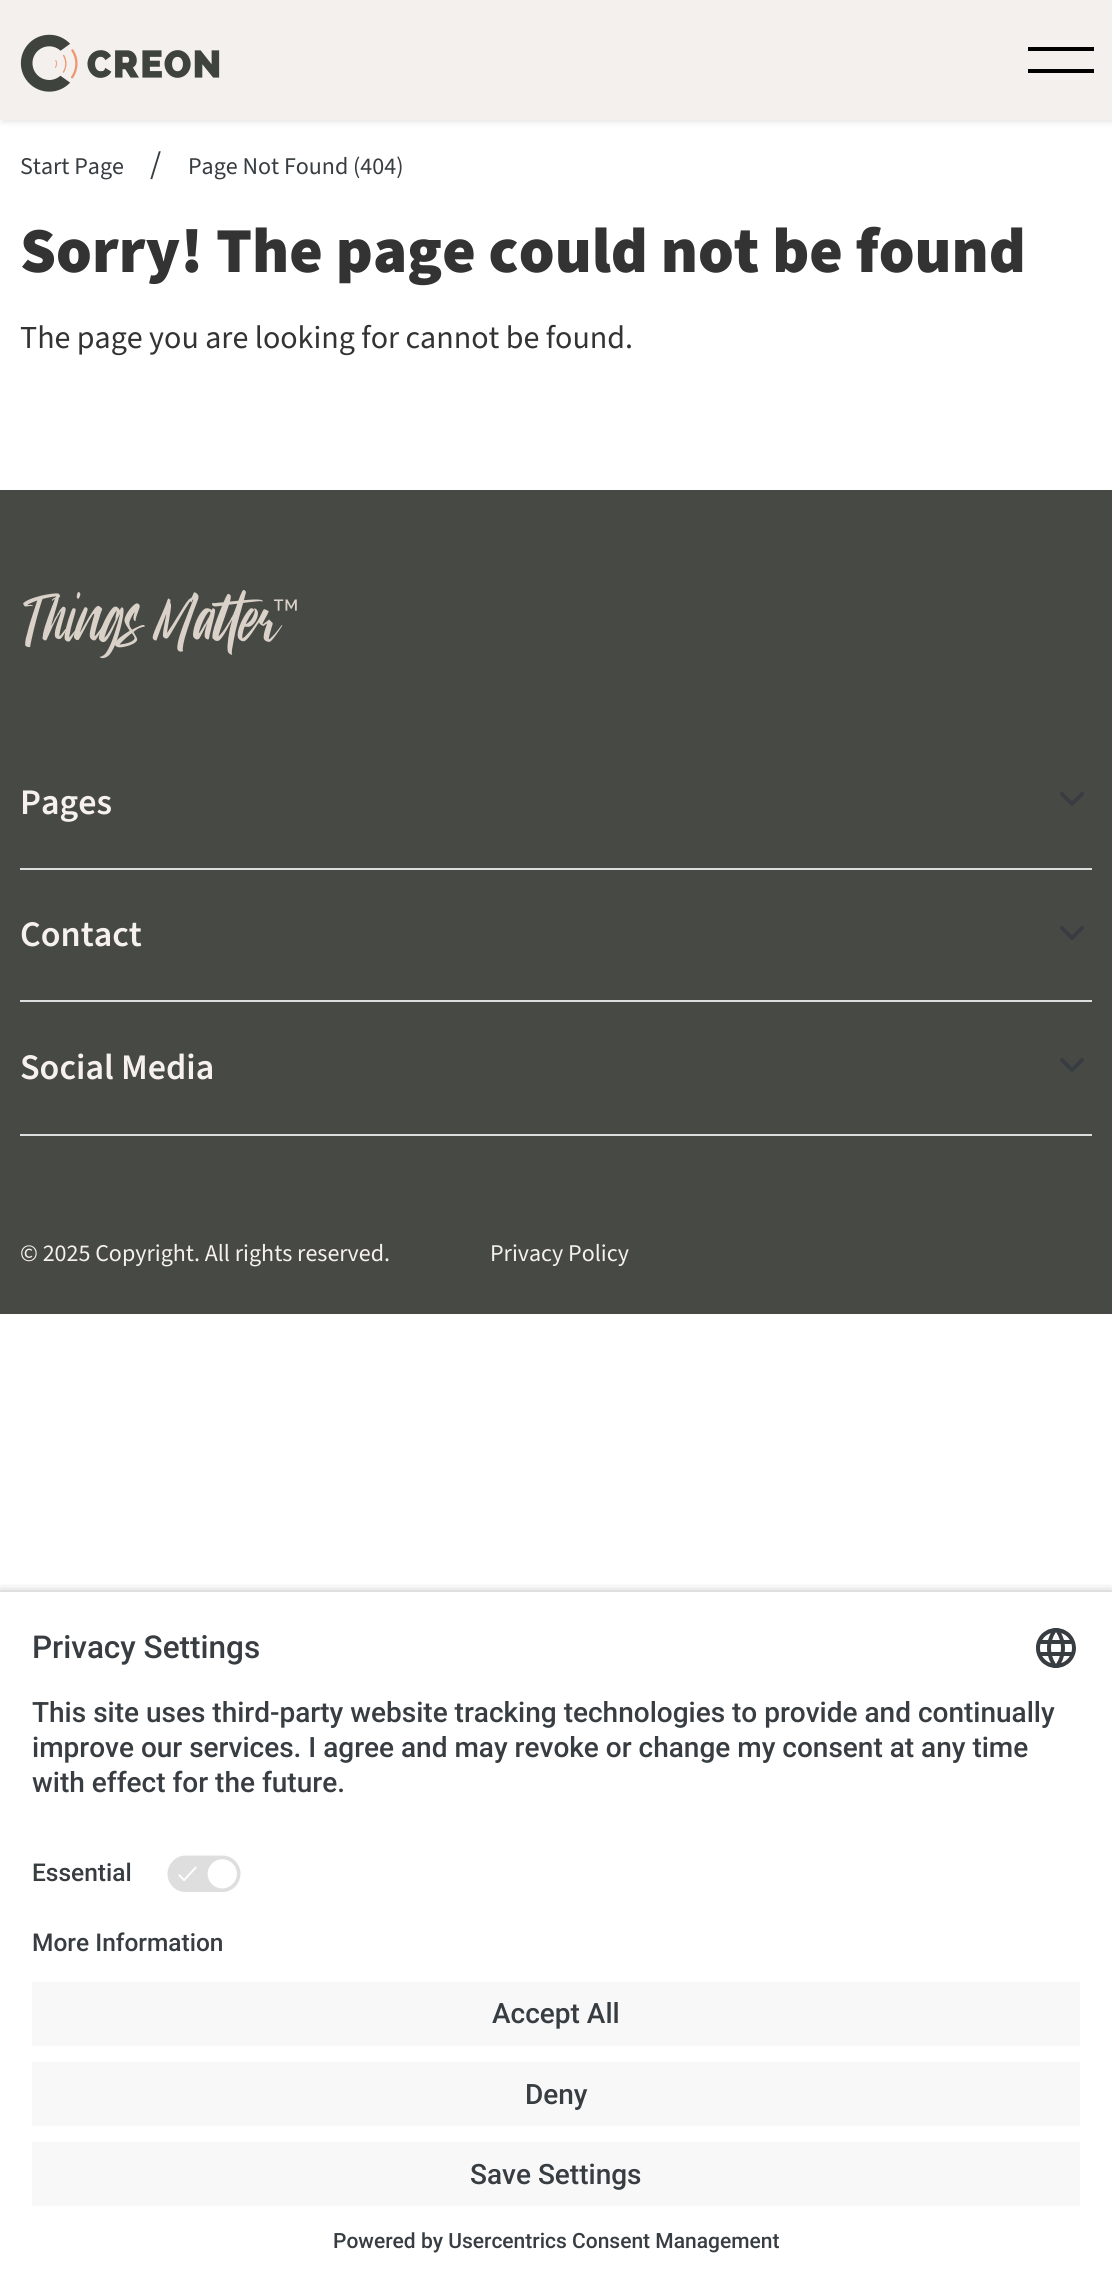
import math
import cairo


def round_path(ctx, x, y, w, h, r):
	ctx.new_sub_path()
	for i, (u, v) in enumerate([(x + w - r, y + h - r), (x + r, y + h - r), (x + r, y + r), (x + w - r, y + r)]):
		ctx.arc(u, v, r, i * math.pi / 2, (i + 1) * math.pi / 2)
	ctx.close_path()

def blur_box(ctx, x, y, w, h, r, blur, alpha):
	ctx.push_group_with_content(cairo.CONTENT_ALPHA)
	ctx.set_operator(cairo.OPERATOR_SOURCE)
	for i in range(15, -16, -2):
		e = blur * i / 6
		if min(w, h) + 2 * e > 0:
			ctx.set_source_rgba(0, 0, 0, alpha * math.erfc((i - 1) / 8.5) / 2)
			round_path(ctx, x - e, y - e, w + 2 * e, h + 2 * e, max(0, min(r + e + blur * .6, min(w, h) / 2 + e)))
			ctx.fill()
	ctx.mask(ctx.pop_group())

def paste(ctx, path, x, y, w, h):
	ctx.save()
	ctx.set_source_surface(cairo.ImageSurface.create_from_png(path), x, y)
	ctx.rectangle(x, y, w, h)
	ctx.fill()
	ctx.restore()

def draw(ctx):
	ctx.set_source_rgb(1, 1, 1)
	ctx.paint()
	ctx.set_source_rgb(0, 0, 0)
	blur_box(ctx, 2, 2, 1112, 120, 0, 3, 0.1)
	ctx.set_source_rgb(0.957, 0.941, 0.929)
	ctx.rectangle(0, 0, 1112, 120)
	ctx.fill()
	paste(ctx, 'media/1.png', 20, 34, 200, 58)
	ctx.set_source_rgb(0, 0, 0)
	ctx.rectangle(1028, 47, 66, 4)
	ctx.fill()
	ctx.rectangle(1028, 69, 66, 4)
	ctx.fill()
	ctx.select_font_face('Source Sans 3')
	ctx.set_font_size(24)
	ctx.set_source_rgb(0.216, 0.239, 0.255)
	ctx.move_to(20, 174)
	ctx.show_text('Start Page')
	ctx.set_font_size(32)
	ctx.move_to(150, 174)
	ctx.show_text('/')
	ctx.set_font_size(24)
	ctx.move_to(188, 174)
	ctx.show_text('Page Not Found (404)')
	ctx.select_font_face('Source Sans 3 Black')
	ctx.set_font_size(64)
	ctx.set_source_rgb(0.2, 0.2, 0.2)
	ctx.move_to(20, 272)
	ctx.show_text('Sorry! The page could not be found')
	ctx.select_font_face('Source Sans 3')
	ctx.set_font_size(32)
	ctx.move_to(20, 348)
	ctx.show_text('The page you are looking for cannot be found.')
	ctx.set_source_rgb(0.278, 0.286, 0.267)
	ctx.rectangle(0, 490, 1112, 824)
	ctx.fill()
	paste(ctx, 'media/2.png', 23, 590, 274, 69)
	ctx.set_source_rgb(0.867, 0.867, 0.867)
	ctx.rectangle(20, 868, 1072, 2)
	ctx.fill()
	ctx.select_font_face('Source Sans 3 SemiBold')
	ctx.set_font_size(36)
	ctx.set_source_rgb(0.961, 0.945, 0.933)
	ctx.move_to(20, 814)
	ctx.show_text('Pages')
	ctx.new_path()
	ctx.move_to(1062, 794)
	ctx.line_to(1072, 804)
	ctx.line_to(1082, 794)
	ctx.set_source_rgb(0.216, 0.239, 0.255)
	ctx.set_line_width(4)
	ctx.set_line_cap(cairo.LINE_CAP_ROUND)
	ctx.set_line_join(cairo.LINE_JOIN_ROUND)
	ctx.stroke()
	ctx.set_source_rgb(0.867, 0.867, 0.867)
	ctx.rectangle(20, 1000, 1072, 2)
	ctx.fill()
	ctx.set_source_rgb(0.961, 0.945, 0.933)
	ctx.move_to(20, 946)
	ctx.show_text('Contact')
	ctx.new_path()
	ctx.move_to(1062, 928)
	ctx.line_to(1072, 938)
	ctx.line_to(1082, 928)
	ctx.set_source_rgb(0.216, 0.239, 0.255)
	ctx.stroke()
	ctx.set_source_rgb(0.867, 0.867, 0.867)
	ctx.rectangle(20, 1134, 1072, 2)
	ctx.fill()
	ctx.set_source_rgb(0.961, 0.945, 0.933)
	ctx.move_to(20, 1079)
	ctx.show_text('Social Media')
	ctx.new_path()
	ctx.move_to(1062, 1060)
	ctx.line_to(1072, 1070)
	ctx.line_to(1082, 1060)
	ctx.set_source_rgb(0.216, 0.239, 0.255)
	ctx.stroke()
	ctx.select_font_face('Source Sans 3')
	ctx.set_font_size(24)
	ctx.set_source_rgb(0.961, 0.945, 0.933)
	ctx.move_to(20, 1261)
	ctx.show_text('© 2025 Copyright. All rights reserved.')
	ctx.move_to(490, 1261)
	ctx.show_text('Privacy Policy')
	ctx.save()
	ctx.rectangle(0, 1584, 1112, 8)
	ctx.clip()
	ctx.set_source_rgb(0, 0, 0)
	blur_box(ctx, 0, 1598, 1112, 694, 0, 7, 0.8)
	ctx.restore()
	ctx.select_font_face('Roboto Medium')
	ctx.set_font_size(31.5)
	ctx.set_source_rgb(0.216, 0.239, 0.255)
	ctx.move_to(32, 1658)
	ctx.show_text('Privacy Settings')
	paste(ctx, 'media/3.png', 1036, 1628, 40, 40)
	ctx.set_font_size(28)
	for x, y, s in [
		(32, 1722, 'This site uses third-party website tracking technologies to provide and continually'),
		(32, 1757, 'improve our services. I agree and may revoke or change my consent at any time'),
		(32, 1792, 'with effect for the future.'),
	]:
		ctx.move_to(x, y)
		ctx.show_text(s)
	ctx.set_font_size(24.5)
	ctx.move_to(32, 1881)
	ctx.show_text('Essential')
	paste(ctx, 'media/4.png', 167, 1855, 74, 37)
	ctx.move_to(32, 1951)
	ctx.show_text('More Information')
	ctx.set_source_rgb(0.969, 0.969, 0.973)
	ctx.rectangle(32, 1982, 1048, 64)
	ctx.fill()
	ctx.set_font_size(28)
	ctx.set_source_rgb(0.216, 0.239, 0.255)
	ctx.move_to(492, 2023)
	ctx.show_text('Accept All')
	ctx.set_source_rgb(0.969, 0.969, 0.973)
	ctx.rectangle(32, 2062, 1048, 64)
	ctx.fill()
	ctx.set_source_rgb(0.216, 0.239, 0.255)
	ctx.move_to(525, 2104)
	ctx.show_text('Deny')
	ctx.set_source_rgb(0.969, 0.969, 0.973)
	ctx.rectangle(32, 2142, 1048, 64)
	ctx.fill()
	ctx.set_source_rgb(0.216, 0.239, 0.255)
	ctx.move_to(470, 2184)
	ctx.show_text('Save Settings')
	ctx.set_font_size(21)
	ctx.move_to(333, 2248)
	ctx.show_text('Powered by Usercentrics Consent Management')


surface = cairo.ImageSurface(cairo.FORMAT_RGB24, 1112, 2285)
ctx = cairo.Context(surface)
options = cairo.FontOptions()
options.set_hint_metrics(cairo.HINT_METRICS_OFF)
options.set_hint_style(cairo.HINT_STYLE_NONE)
ctx.set_font_options(options)
ctx.set_miter_limit(4)
draw(ctx)
surface.write_to_png('image.png')
